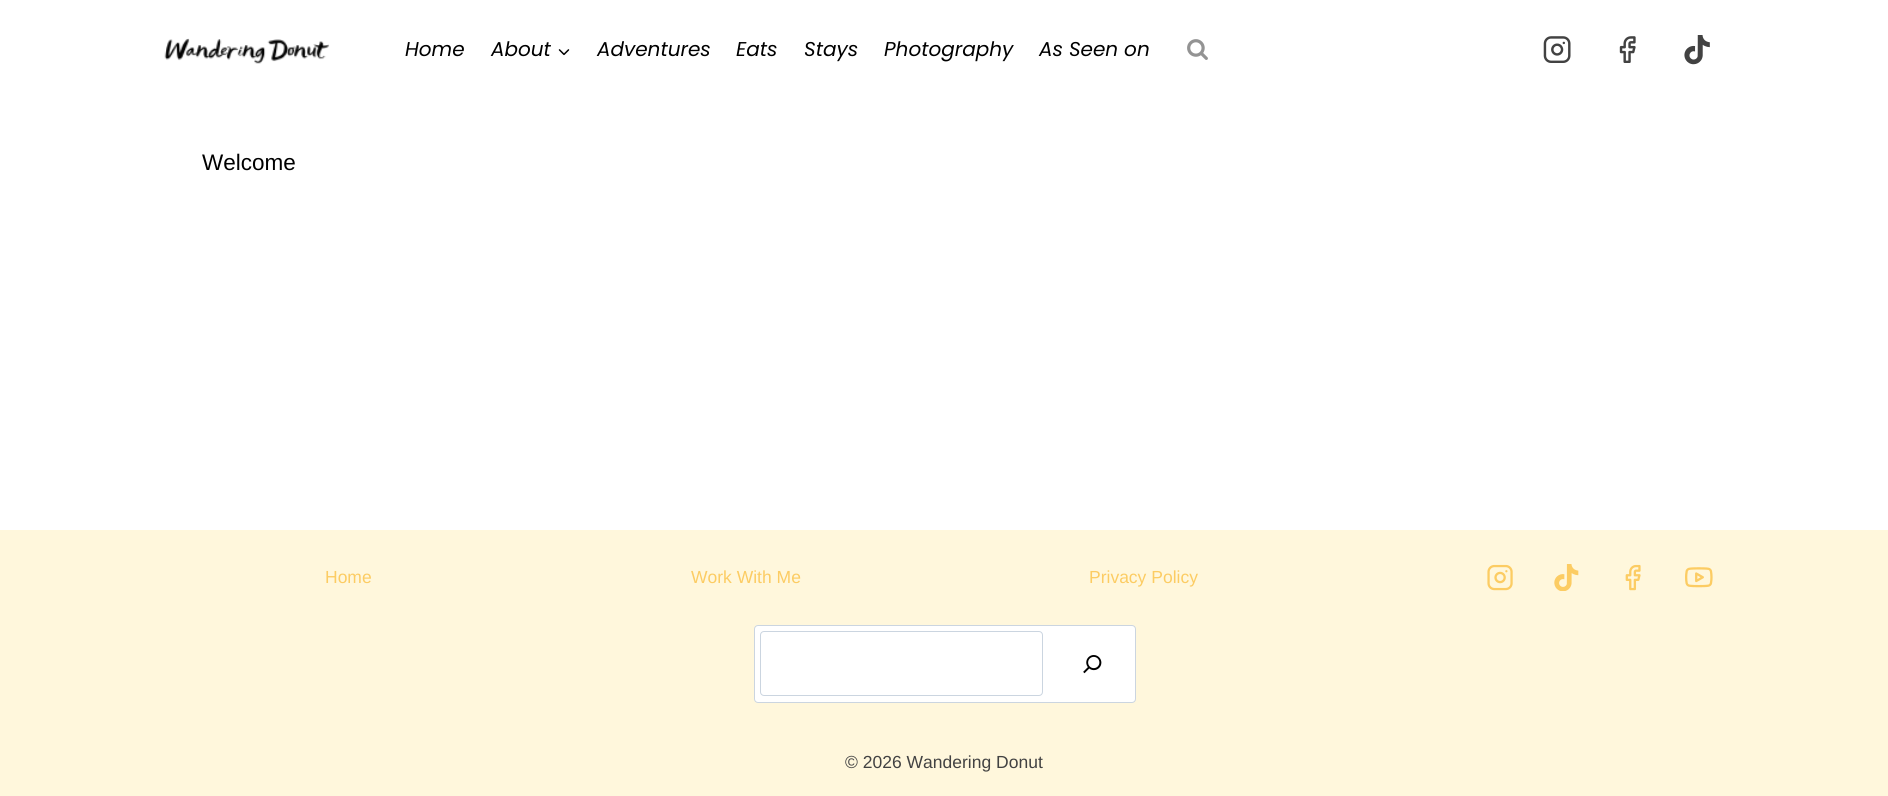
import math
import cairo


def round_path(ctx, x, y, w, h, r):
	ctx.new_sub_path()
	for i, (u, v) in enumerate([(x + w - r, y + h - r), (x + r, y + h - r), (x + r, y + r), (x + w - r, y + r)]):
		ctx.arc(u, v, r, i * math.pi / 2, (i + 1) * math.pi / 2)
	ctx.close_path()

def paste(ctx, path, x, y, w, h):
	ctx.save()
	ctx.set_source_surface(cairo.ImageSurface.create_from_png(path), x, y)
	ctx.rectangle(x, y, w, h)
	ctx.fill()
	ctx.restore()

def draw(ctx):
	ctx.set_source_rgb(1, 1, 1)
	ctx.paint()
	paste(ctx, 'media/1.png', 164, 38, 166, 26)
	ctx.select_font_face('Poppins', cairo.FONT_SLANT_ITALIC)
	ctx.set_font_size(20)
	ctx.set_source_rgb(0, 0, 0)
	ctx.move_to(405, 56)
	ctx.show_text('Home')
	ctx.move_to(491, 56)
	ctx.show_text('About')
	paste(ctx, 'media/2.png', 558, 49, 12, 7)
	for x, y, s in [
		(597, 56, 'Adventures'),
		(736, 56, 'Eats'),
		(804, 56, 'Stays'),
		(884, 56, 'Photography'),
		(1039, 56, 'As Seen on'),
	]:
		ctx.move_to(x, y)
		ctx.show_text(s)
	paste(ctx, 'media/3.png', 1187, 39, 21, 21)
	paste(ctx, 'media/4.png', 1543, 36, 28, 27)
	paste(ctx, 'media/5.png', 1619, 36, 17, 27)
	paste(ctx, 'media/6.png', 1684, 35, 26, 30)
	ctx.select_font_face('Liberation Sans')
	ctx.set_font_size(22.5)
	ctx.move_to(202, 170)
	ctx.show_text('Welcome')
	ctx.set_source_rgb(1, 0.965, 0.863)
	ctx.rectangle(0, 530, 1888, 266)
	ctx.fill()
	ctx.set_font_size(17.5)
	ctx.set_source_rgb(0.988, 0.8, 0.388)
	for x, y, s in [
		(325, 583, 'Home'),
		(691, 583, 'Work With Me'),
		(1089, 583, 'Privacy Policy'),
	]:
		ctx.move_to(x, y)
		ctx.show_text(s)
	paste(ctx, 'media/7.png', 1487, 564, 26, 27)
	paste(ctx, 'media/8.png', 1554, 564, 25, 27)
	paste(ctx, 'media/9.png', 1625, 564, 16, 27)
	paste(ctx, 'media/10.png', 1685, 567, 28, 21)
	ctx.set_source_rgb(1, 1, 1)
	round_path(ctx, 754.5, 625.5, 381, 77, 3.5)
	ctx.fill_preserve()
	ctx.set_source_rgb(0.796, 0.835, 0.878)
	ctx.set_line_width(1)
	ctx.stroke()
	round_path(ctx, 760.5, 631.5, 282, 64, 3.5)
	ctx.stroke()
	paste(ctx, 'media/11.png', 1083, 655, 19, 19)
	ctx.set_source_rgb(0.259, 0.259, 0.259)
	ctx.move_to(845, 768)
	ctx.show_text('© 2026 Wandering Donut')


surface = cairo.ImageSurface(cairo.FORMAT_RGB24, 1888, 796)
ctx = cairo.Context(surface)
options = cairo.FontOptions()
options.set_hint_metrics(cairo.HINT_METRICS_OFF)
options.set_hint_style(cairo.HINT_STYLE_NONE)
ctx.set_font_options(options)
ctx.set_miter_limit(4)
draw(ctx)
surface.write_to_png('image.png')
